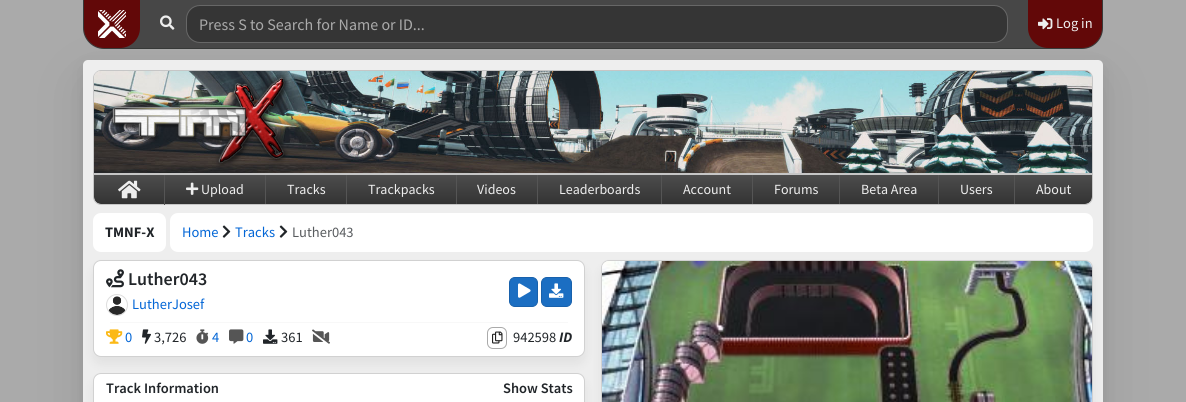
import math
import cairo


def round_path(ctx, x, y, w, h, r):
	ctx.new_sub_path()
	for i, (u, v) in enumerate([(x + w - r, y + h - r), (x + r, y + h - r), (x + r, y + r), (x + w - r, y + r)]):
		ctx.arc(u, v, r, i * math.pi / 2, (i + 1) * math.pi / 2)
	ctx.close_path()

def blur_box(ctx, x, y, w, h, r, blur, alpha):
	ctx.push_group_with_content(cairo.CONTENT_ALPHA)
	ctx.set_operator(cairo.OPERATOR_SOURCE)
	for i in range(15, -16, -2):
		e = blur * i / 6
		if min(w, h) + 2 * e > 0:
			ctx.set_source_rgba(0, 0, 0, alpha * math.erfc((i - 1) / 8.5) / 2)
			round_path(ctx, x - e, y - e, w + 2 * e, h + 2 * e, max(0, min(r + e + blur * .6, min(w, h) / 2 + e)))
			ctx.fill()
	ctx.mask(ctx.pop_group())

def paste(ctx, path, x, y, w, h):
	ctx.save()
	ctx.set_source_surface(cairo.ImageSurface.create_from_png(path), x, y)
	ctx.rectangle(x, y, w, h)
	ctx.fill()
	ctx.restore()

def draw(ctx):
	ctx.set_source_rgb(0.667, 0.667, 0.667)
	ctx.paint()
	ctx.set_source_rgb(0, 0, 0)
	blur_box(ctx, 83, 80, 1020, 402, 5, 25, 0.1)
	blur_box(ctx, 83, 66, 1020, 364, 5, 7.5, 0.07)
	ctx.set_source_rgb(0.216, 0.224, 0.22)
	ctx.new_path()
	ctx.move_to(83, 0)
	ctx.line_to(1103, 0)
	ctx.line_to(1103, 28)
	ctx.curve_to(1103, 39.5, 1093.5, 49, 1082, 49)
	ctx.line_to(104, 49)
	ctx.curve_to(92.5, 49, 83, 39.5, 83, 28)
	ctx.close_path()
	ctx.fill()
	ctx.set_source_rgb(0.278, 0.278, 0.278)
	ctx.new_path()
	ctx.move_to(84, 0)
	ctx.line_to(1102, 0)
	ctx.line_to(1102, 28)
	ctx.curve_to(1102, 39, 1093, 48, 1082, 48)
	ctx.line_to(104, 48)
	ctx.curve_to(93, 48, 84, 39, 84, 28)
	ctx.close_path()
	ctx.fill()
	ctx.set_source_rgb(0.384, 0.035, 0.035)
	ctx.new_path()
	ctx.move_to(84, 0)
	ctx.line_to(140, 0)
	ctx.line_to(140, 28)
	ctx.curve_to(140, 39, 131, 48, 120, 48)
	ctx.line_to(104, 48)
	ctx.curve_to(93, 48, 84, 39, 84, 28)
	ctx.close_path()
	ctx.fill()
	paste(ctx, 'media/1.png', 98, 10, 28, 28)
	paste(ctx, 'media/2.png', 160, 15, 15, 15)
	ctx.set_source_rgb(0.208, 0.208, 0.208)
	round_path(ctx, 186.5, 5.5, 821, 37, 13.5)
	ctx.fill_preserve()
	ctx.set_source_rgb(0.404, 0.404, 0.404)
	ctx.set_line_width(1)
	ctx.stroke()
	ctx.select_font_face('Source Sans Pro')
	ctx.set_font_size(16)
	ctx.set_source_rgb(0.667, 0.667, 0.667)
	ctx.move_to(199, 30)
	ctx.show_text('Press S to Search for Name or ID...')
	ctx.set_source_rgb(0.384, 0.035, 0.035)
	ctx.new_path()
	ctx.move_to(1028, 0)
	ctx.line_to(1102, 0)
	ctx.line_to(1102, 28)
	ctx.curve_to(1102, 39, 1093, 48, 1082, 48)
	ctx.line_to(1048, 48)
	ctx.curve_to(1037, 48, 1028, 39, 1028, 28)
	ctx.close_path()
	ctx.fill()
	paste(ctx, 'media/3.png', 1038, 18, 15, 12)
	ctx.set_font_size(14.5)
	ctx.set_source_rgb(0.933, 0.933, 0.933)
	ctx.move_to(1056, 28)
	ctx.show_text('Log in')
	round_path(ctx, 83, 60, 1020, 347, 5)
	ctx.fill()
	ctx.set_source_rgb(0.776, 0.776, 0.776)
	ctx.set_fill_rule(cairo.FILL_RULE_EVEN_ODD)
	ctx.new_path()
	ctx.move_to(101, 70)
	ctx.line_to(1085, 70)
	ctx.curve_to(1089, 70, 1093, 74, 1093, 78)
	ctx.line_to(1093, 173)
	ctx.line_to(93, 173)
	ctx.line_to(93, 78)
	ctx.curve_to(93, 74, 97, 70, 101, 70)
	ctx.close_path()
	ctx.move_to(101, 71)
	ctx.line_to(1085, 71)
	ctx.curve_to(1089, 71, 1092, 74, 1092, 78)
	ctx.line_to(1092, 173)
	ctx.line_to(94, 173)
	ctx.line_to(94, 78)
	ctx.curve_to(94, 74, 97, 71, 101, 71)
	ctx.close_path()
	ctx.fill()
	paste(ctx, 'media/4.png', 94, 71, 998, 102)
	paste(ctx, 'media/5.png', 108, 75, 181, 91)
	gradient = cairo.LinearGradient(593, 204, 593, 175)
	gradient.add_color_stop_rgba(0, 0.2, 0.2, 0.2, 1)
	gradient.add_color_stop_rgba(1, 0.302, 0.302, 0.302, 1)
	ctx.set_source(gradient)
	ctx.new_path()
	ctx.move_to(94, 175)
	ctx.line_to(1092, 175)
	ctx.line_to(1092, 197)
	ctx.curve_to(1092, 201, 1089, 204, 1085, 204)
	ctx.line_to(101, 204)
	ctx.curve_to(97, 204, 94, 201, 94, 197)
	ctx.close_path()
	ctx.fill()
	ctx.new_path()
	ctx.move_to(93.5, 173.5)
	ctx.line_to(1092.5, 173.5)
	ctx.line_to(1092.5, 197)
	ctx.curve_to(1092.5, 201, 1089, 204.5, 1085, 204.5)
	ctx.line_to(101, 204.5)
	ctx.curve_to(97, 204.5, 93.5, 201, 93.5, 197)
	ctx.close_path()
	ctx.set_source_rgb(0.776, 0.776, 0.776)
	ctx.stroke()
	ctx.rectangle(93, 174, 1000, 1)
	ctx.fill()
	ctx.set_source_rgb(0.333, 0.333, 0.333)
	ctx.rectangle(164, 175, 1, 30)
	ctx.fill()
	paste(ctx, 'media/6.png', 118, 180, 23, 19)
	ctx.rectangle(265, 175, 1, 29)
	ctx.fill()
	paste(ctx, 'media/7.png', 186, 182, 13, 13)
	ctx.set_font_size(14)
	ctx.set_source_rgb(0.933, 0.933, 0.933)
	ctx.move_to(201, 194)
	ctx.show_text('Upload')
	ctx.set_source_rgb(0.333, 0.333, 0.333)
	ctx.rectangle(346, 175, 1, 29)
	ctx.fill()
	ctx.set_source_rgb(0.933, 0.933, 0.933)
	ctx.move_to(287, 194)
	ctx.show_text('Tracks')
	ctx.set_source_rgb(0.333, 0.333, 0.333)
	ctx.rectangle(456, 175, 1, 29)
	ctx.fill()
	ctx.set_source_rgb(0.933, 0.933, 0.933)
	ctx.move_to(368, 194)
	ctx.show_text('Trackpacks')
	ctx.set_source_rgb(0.333, 0.333, 0.333)
	ctx.rectangle(537, 175, 1, 29)
	ctx.fill()
	ctx.set_source_rgb(0.933, 0.933, 0.933)
	ctx.move_to(477, 194)
	ctx.show_text('Videos')
	ctx.set_source_rgb(0.333, 0.333, 0.333)
	ctx.rectangle(661, 175, 1, 29)
	ctx.fill()
	ctx.set_source_rgb(0.933, 0.933, 0.933)
	ctx.move_to(559, 194)
	ctx.show_text('Leaderboards')
	ctx.set_source_rgb(0.333, 0.333, 0.333)
	ctx.rectangle(752, 175, 1, 29)
	ctx.fill()
	ctx.set_source_rgb(0.933, 0.933, 0.933)
	ctx.move_to(683, 194)
	ctx.show_text('Account')
	ctx.set_source_rgb(0.333, 0.333, 0.333)
	ctx.rectangle(839, 175, 1, 29)
	ctx.fill()
	ctx.set_source_rgb(0.933, 0.933, 0.933)
	ctx.move_to(774, 194)
	ctx.show_text('Forums')
	ctx.set_source_rgb(0.333, 0.333, 0.333)
	ctx.rectangle(938, 175, 1, 29)
	ctx.fill()
	ctx.set_source_rgb(0.933, 0.933, 0.933)
	ctx.move_to(861, 194)
	ctx.show_text('Beta Area')
	ctx.set_source_rgb(0.333, 0.333, 0.333)
	ctx.rectangle(1014, 175, 1, 29)
	ctx.fill()
	ctx.set_source_rgb(0.933, 0.933, 0.933)
	ctx.move_to(960, 194)
	ctx.show_text('Users')
	ctx.move_to(1036, 194)
	ctx.show_text('About')
	ctx.set_source_rgb(1, 1, 1)
	round_path(ctx, 93, 213, 73, 39, 8)
	ctx.fill()
	ctx.select_font_face('Source Sans Pro', cairo.FONT_SLANT_NORMAL, cairo.FONT_WEIGHT_BOLD)
	ctx.set_font_size(14.5)
	ctx.set_source_rgb(0.129, 0.145, 0.161)
	ctx.move_to(105, 237)
	ctx.show_text('TMNF-X')
	ctx.set_source_rgb(1, 1, 1)
	round_path(ctx, 170, 213, 923, 39, 8)
	ctx.fill()
	ctx.select_font_face('Source Sans Pro')
	ctx.set_source_rgb(0.012, 0.4, 0.839)
	ctx.move_to(182, 237)
	ctx.show_text('Home')
	paste(ctx, 'media/8.png', 222, 225, 9, 13)
	ctx.move_to(235, 237)
	ctx.show_text('Tracks')
	paste(ctx, 'media/8.png', 279, 225, 9, 13)
	ctx.set_source_rgb(0.349, 0.361, 0.373)
	ctx.move_to(292, 237)
	ctx.show_text('Luther043')
	ctx.set_source_rgb(0, 0, 0)
	blur_box(ctx, 93, 267, 492, 97, 8, 5.5, 0.06)
	ctx.set_source_rgb(1, 1, 1)
	round_path(ctx, 93, 260, 492, 97, 8)
	ctx.fill()
	round_path(ctx, 93.5, 260.5, 491, 96, 7.5)
	ctx.set_source_rgba(0, 0, 0, 0.18)
	ctx.stroke()
	paste(ctx, 'media/9.png', 106, 269, 18, 19)
	ctx.select_font_face('Source Sans Pro SemiBold')
	ctx.set_font_size(18)
	ctx.set_source_rgb(0.129, 0.145, 0.161)
	ctx.move_to(128, 285)
	ctx.show_text('Luther043')
	ctx.new_path()
	ctx.arc(117, 305, 10.5, 0, 2 * math.pi)
	ctx.set_source_rgb(0.867, 0.867, 0.867)
	ctx.stroke()
	paste(ctx, 'media/10.png', 108, 296, 18, 19)
	ctx.select_font_face('Source Sans Pro')
	ctx.set_font_size(14.5)
	ctx.set_source_rgb(0.012, 0.4, 0.839)
	ctx.move_to(132, 309)
	ctx.show_text('LutherJosef')
	ctx.set_source_rgb(0.106, 0.431, 0.761)
	round_path(ctx, 509.5, 277.5, 28, 29, 5.5)
	ctx.fill_preserve()
	ctx.set_source_rgb(0.094, 0.38, 0.675)
	ctx.stroke()
	paste(ctx, 'media/11.png', 518, 283, 13, 15)
	ctx.set_source_rgb(0.106, 0.431, 0.761)
	round_path(ctx, 541.5, 277.5, 30, 29, 5.5)
	ctx.fill_preserve()
	ctx.set_source_rgb(0.094, 0.38, 0.675)
	ctx.stroke()
	paste(ctx, 'media/12.png', 549, 283, 15, 15)
	ctx.set_source_rgb(0.969, 0.969, 0.969)
	ctx.rectangle(110, 322, 458, 1)
	ctx.fill()
	paste(ctx, 'media/13.png', 106, 329, 17, 15)
	ctx.set_source_rgb(0.012, 0.4, 0.839)
	ctx.move_to(125, 342)
	ctx.show_text('0')
	paste(ctx, 'media/14.png', 142, 329, 9, 15)
	ctx.set_source_rgb(0.129, 0.145, 0.161)
	ctx.move_to(154, 342)
	ctx.show_text('3,726')
	paste(ctx, 'media/15.png', 196, 329, 13, 15)
	ctx.set_source_rgb(0.012, 0.4, 0.839)
	ctx.move_to(212, 342)
	ctx.show_text('4')
	paste(ctx, 'media/16.png', 229, 329, 15, 15)
	ctx.move_to(246, 342)
	ctx.show_text('0')
	paste(ctx, 'media/17.png', 263, 329, 15, 15)
	ctx.set_source_rgb(0.129, 0.145, 0.161)
	ctx.move_to(281, 342)
	ctx.show_text('361')
	paste(ctx, 'media/18.png', 312, 329, 18, 15)
	round_path(ctx, 487.5, 327.5, 19, 21, 5.5)
	ctx.set_source_rgb(0.667, 0.667, 0.667)
	ctx.stroke()
	paste(ctx, 'media/19.png', 492, 331, 11, 13)
	ctx.set_source_rgb(0.129, 0.145, 0.161)
	ctx.move_to(513, 342)
	ctx.show_text('942598')
	ctx.select_font_face('Source Sans Pro', cairo.FONT_SLANT_ITALIC, cairo.FONT_WEIGHT_BOLD)
	ctx.move_to(559, 342)
	ctx.show_text('ID')
	ctx.set_source_rgb(0, 0, 0)
	blur_box(ctx, 93, 380, 492, 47, 8, 5.5, 0.06)
	ctx.set_source_rgb(1, 1, 1)
	round_path(ctx, 93, 373, 492, 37, 8)
	ctx.fill()
	round_path(ctx, 93.5, 373.5, 491, 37, 7.5)
	ctx.set_source_rgba(0, 0, 0, 0.18)
	ctx.stroke()
	ctx.select_font_face('Source Sans Pro SemiBold')
	ctx.set_source_rgb(0.129, 0.145, 0.161)
	ctx.move_to(106, 393)
	ctx.show_text('Track Information')
	ctx.move_to(503, 393)
	ctx.show_text('Show Stats')
	ctx.set_source_rgb(0, 0, 0)
	blur_box(ctx, 601, 267, 492, 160, 8, 5.5, 0.06)
	ctx.set_source_rgb(1, 1, 1)
	round_path(ctx, 601, 260, 492, 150, 8)
	ctx.fill()
	round_path(ctx, 601.5, 260.5, 491, 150, 7.5)
	ctx.set_source_rgba(0, 0, 0, 0.18)
	ctx.stroke()
	paste(ctx, 'media/20.png', 602, 261, 490, 141)


surface = cairo.ImageSurface(cairo.FORMAT_RGB24, 1186, 402)
ctx = cairo.Context(surface)
options = cairo.FontOptions()
options.set_hint_metrics(cairo.HINT_METRICS_OFF)
options.set_hint_style(cairo.HINT_STYLE_NONE)
ctx.set_font_options(options)
ctx.set_miter_limit(4)
draw(ctx)
surface.write_to_png('image.png')
